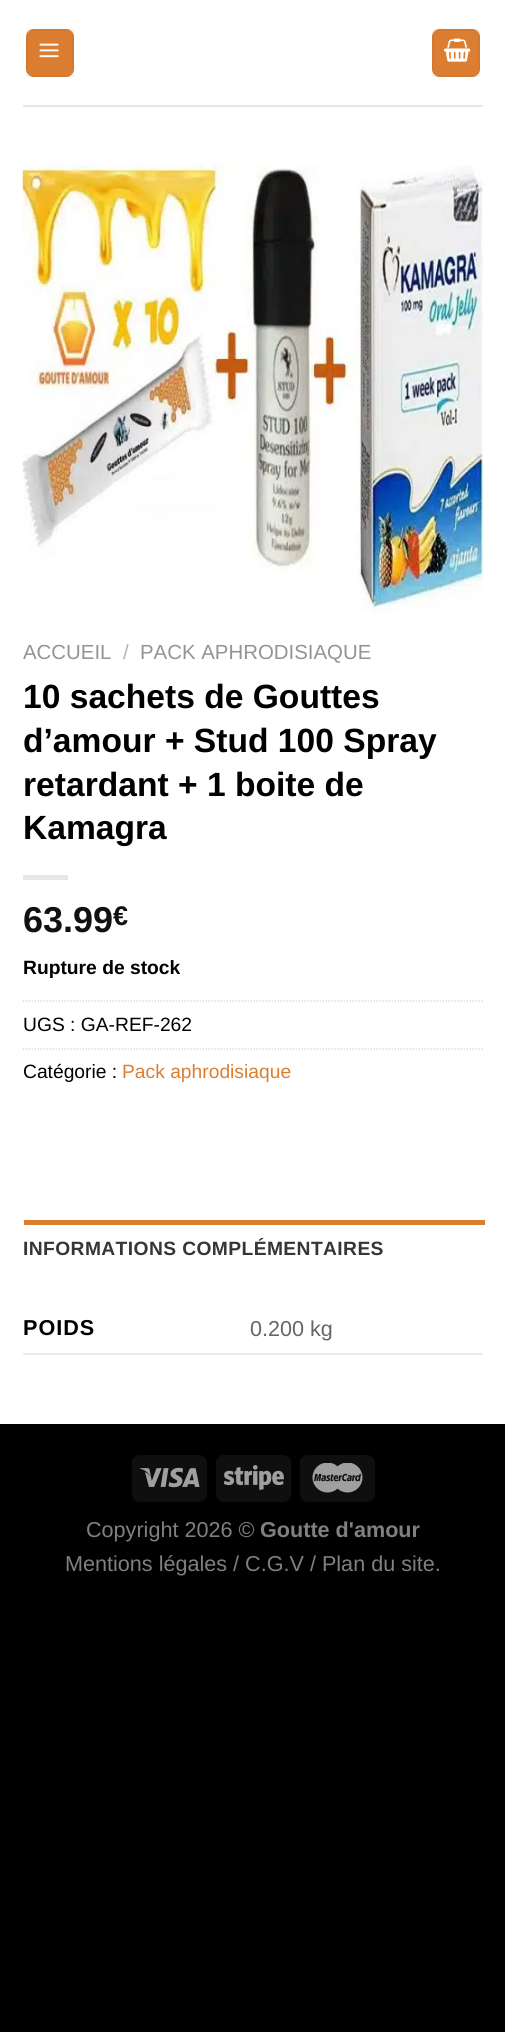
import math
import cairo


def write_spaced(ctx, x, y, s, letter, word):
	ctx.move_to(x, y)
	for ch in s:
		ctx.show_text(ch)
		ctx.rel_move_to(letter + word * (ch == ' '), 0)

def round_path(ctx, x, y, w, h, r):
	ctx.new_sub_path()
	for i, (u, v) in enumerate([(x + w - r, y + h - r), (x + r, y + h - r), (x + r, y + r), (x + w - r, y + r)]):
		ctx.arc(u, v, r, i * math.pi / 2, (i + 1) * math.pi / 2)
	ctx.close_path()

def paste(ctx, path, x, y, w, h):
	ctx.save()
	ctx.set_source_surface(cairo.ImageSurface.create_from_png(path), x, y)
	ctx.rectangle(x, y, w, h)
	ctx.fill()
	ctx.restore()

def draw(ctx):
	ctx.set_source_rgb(0, 0, 0)
	ctx.paint()
	ctx.set_source_rgb(1, 1, 1)
	ctx.rectangle(0, 0, 505, 1424)
	ctx.fill()
	ctx.set_source_rgb(0.863, 0.494, 0.196)
	round_path(ctx, 26, 29, 48, 48, 8)
	ctx.fill()
	ctx.rectangle(27, 30, 46, 46)
	ctx.set_source_rgba(0, 0, 0, 0.05)
	ctx.stroke()
	paste(ctx, 'media/1.png', 39, 43, 20, 15)
	ctx.set_source_rgb(0.863, 0.494, 0.196)
	round_path(ctx, 432, 29, 48, 48, 8)
	ctx.fill()
	ctx.rectangle(433, 30, 46, 46)
	ctx.set_source_rgba(0, 0, 0, 0.05)
	ctx.stroke()
	paste(ctx, 'media/2.png', 444, 38, 27, 24)
	ctx.set_source_rgb(0.902, 0.902, 0.902)
	ctx.rectangle(23, 105, 460, 2)
	ctx.fill()
	paste(ctx, 'media/3.png', 22, 165, 461, 448)
	ctx.select_font_face('Liberation Sans')
	ctx.set_font_size(20.4)
	ctx.set_source_rgb(0.58, 0.58, 0.58)
	ctx.move_to(23, 659)
	ctx.show_text('ACCUEIL')
	ctx.set_source_rgb(0.698, 0.698, 0.698)
	ctx.move_to(123, 659)
	ctx.show_text('/')
	ctx.set_source_rgb(0.58, 0.58, 0.58)
	ctx.move_to(140, 659)
	ctx.show_text('PACK APHRODISIAQUE')
	ctx.select_font_face('Liberation Sans', cairo.FONT_SLANT_NORMAL, cairo.FONT_WEIGHT_BOLD)
	ctx.set_font_size(33.6)
	ctx.set_source_rgb(0, 0, 0)
	for x, y, s in [
		(23, 708, '10 sachets de Gouttes'),
		(23, 752, 'd’amour + Stud 100 Spray'),
		(23, 796, 'retardant + 1 boite de'),
		(23, 839, 'Kamagra'),
	]:
		ctx.move_to(x, y)
		ctx.show_text(s)
	ctx.set_source_rgb(0.902, 0.902, 0.902)
	ctx.rectangle(23, 875, 45, 5)
	ctx.fill()
	ctx.set_font_size(36)
	ctx.set_source_rgb(0.067, 0.067, 0.067)
	ctx.move_to(23, 932)
	ctx.show_text('63.99')
	ctx.set_font_size(27)
	ctx.move_to(113, 925)
	ctx.show_text('€')
	ctx.set_font_size(19.25)
	ctx.set_source_rgb(0, 0, 0)
	ctx.move_to(23, 974)
	ctx.show_text('Rupture de stock')
	ctx.new_path()
	ctx.move_to(22.5, 1001)
	ctx.line_to(483, 1001)
	ctx.set_source_rgb(0.867, 0.867, 0.867)
	ctx.set_line_width(1.5)
	ctx.set_dash([1.5, 1.5])
	ctx.stroke()
	ctx.select_font_face('Liberation Sans')
	ctx.set_source_rgb(0, 0, 0)
	ctx.move_to(23, 1031)
	ctx.show_text('UGS : GA-REF-262')
	ctx.new_path()
	ctx.move_to(22.5, 1049)
	ctx.line_to(483, 1049)
	ctx.set_source_rgb(0.867, 0.867, 0.867)
	ctx.stroke()
	ctx.set_source_rgb(0, 0, 0)
	ctx.move_to(23, 1078)
	ctx.show_text('Catégorie :')
	ctx.set_source_rgb(0.863, 0.494, 0.196)
	ctx.move_to(122, 1078)
	ctx.show_text('Pack aphrodisiaque')
	ctx.set_source_rgb(0.925, 0.925, 0.925)
	ctx.rectangle(23, 1220, 1, 2)
	ctx.fill()
	ctx.set_source_rgb(0.863, 0.494, 0.196)
	ctx.rectangle(24, 1220, 461, 5)
	ctx.fill()
	ctx.select_font_face('Liberation Sans', cairo.FONT_SLANT_NORMAL, cairo.FONT_WEIGHT_BOLD)
	ctx.set_source_rgb(0.212, 0.212, 0.212)
	write_spaced(ctx, 23, 1255, 'INFORMATIONS COMPLÉMENTAIRES', 0.4, 0)
	ctx.set_source_rgb(0.925, 0.925, 0.925)
	ctx.rectangle(23, 1353, 460, 2)
	ctx.fill()
	ctx.set_font_size(21.6)
	ctx.set_source_rgb(0, 0, 0)
	write_spaced(ctx, 23, 1335, 'POIDS', 1, 0)
	ctx.select_font_face('Liberation Sans')
	ctx.set_source_rgb(0.4, 0.4, 0.4)
	ctx.move_to(250, 1336)
	ctx.show_text('0.200 kg')
	ctx.set_source_rgb(0.059, 0.059, 0.059)
	round_path(ctx, 132, 1455, 75, 47, 8)
	ctx.fill()
	paste(ctx, 'media/4.png', 140, 1467, 60, 21)
	round_path(ctx, 216, 1455, 75, 47, 8)
	ctx.fill()
	paste(ctx, 'media/5.png', 224, 1465, 60, 25)
	round_path(ctx, 300, 1455, 75, 47, 8)
	ctx.fill()
	paste(ctx, 'media/6.png', 312, 1463, 51, 30)
	ctx.set_source_rgb(0.502, 0.502, 0.502)
	ctx.move_to(86, 1537)
	ctx.show_text('Copyright 2026 ©')
	ctx.select_font_face('Liberation Sans', cairo.FONT_SLANT_NORMAL, cairo.FONT_WEIGHT_BOLD)
	ctx.move_to(260, 1537)
	ctx.show_text('Goutte d\'amour')
	ctx.select_font_face('Liberation Sans')
	ctx.move_to(65, 1571)
	ctx.show_text('Mentions légales / C.G.V / Plan du site.')


surface = cairo.ImageSurface(cairo.FORMAT_RGB24, 505, 2032)
ctx = cairo.Context(surface)
options = cairo.FontOptions()
options.set_hint_metrics(cairo.HINT_METRICS_OFF)
options.set_hint_style(cairo.HINT_STYLE_NONE)
ctx.set_font_options(options)
ctx.set_miter_limit(4)
draw(ctx)
surface.write_to_png('image.png')
